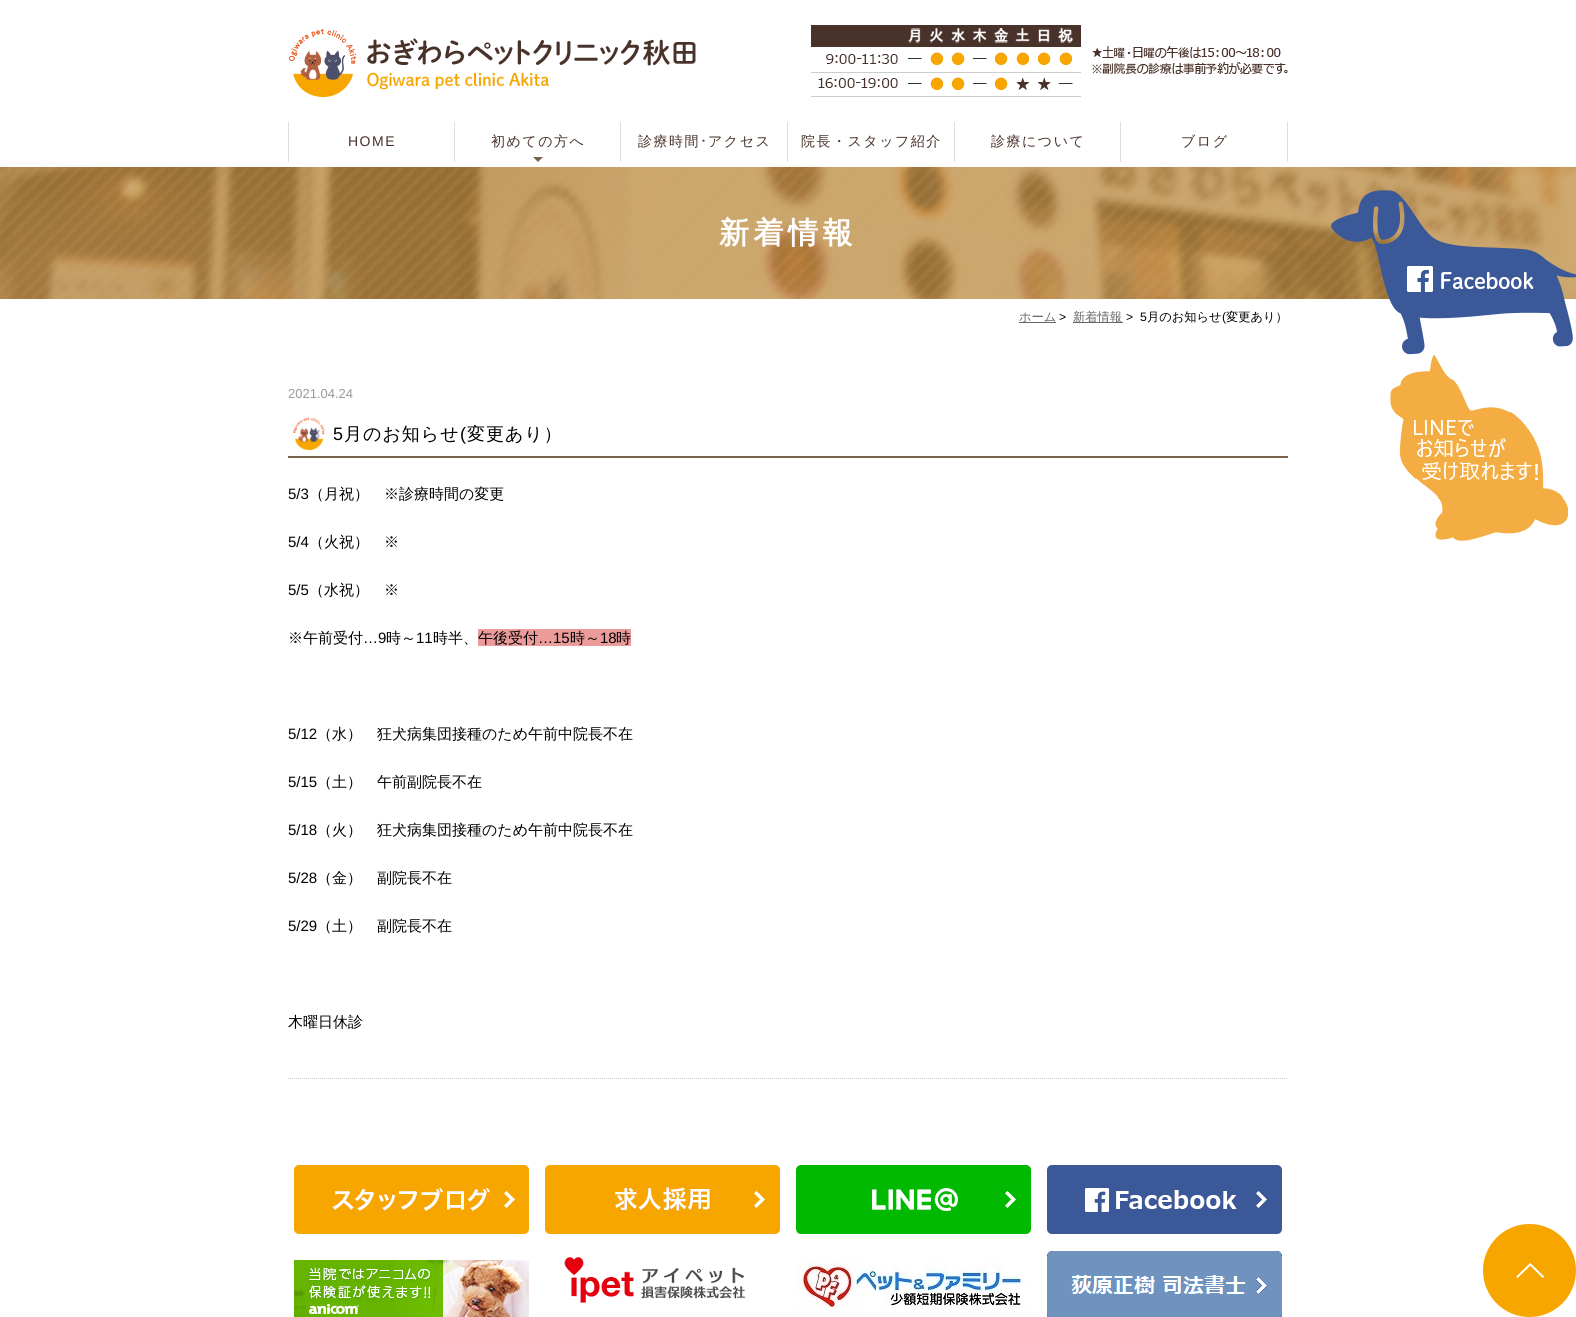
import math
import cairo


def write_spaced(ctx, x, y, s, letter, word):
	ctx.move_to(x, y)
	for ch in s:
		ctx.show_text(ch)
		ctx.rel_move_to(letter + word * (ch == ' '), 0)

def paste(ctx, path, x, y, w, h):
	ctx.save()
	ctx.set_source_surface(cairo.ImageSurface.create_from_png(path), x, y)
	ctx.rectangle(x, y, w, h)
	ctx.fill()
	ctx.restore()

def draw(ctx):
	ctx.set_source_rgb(1, 1, 1)
	ctx.paint()
	paste(ctx, 'media/1.png', 288, 28, 408, 69)
	paste(ctx, 'media/2.png', 811, 25, 477, 72)
	ctx.set_source_rgb(0.855, 0.875, 0.886)
	ctx.rectangle(288, 122, 1, 40)
	ctx.fill()
	ctx.select_font_face('Liberation Sans')
	ctx.set_font_size(14)
	ctx.set_source_rgb(0.282, 0.196, 0.161)
	write_spaced(ctx, 348, 146, 'HOME', 1.5, 0)
	ctx.set_source_rgb(0.855, 0.875, 0.886)
	ctx.rectangle(454, 122, 1, 40)
	ctx.fill()
	ctx.select_font_face('WenQuanYi Zen Hei Medium')
	ctx.set_source_rgb(0.282, 0.196, 0.161)
	write_spaced(ctx, 491, 146, '初めての方へ', 1.5, 0)
	ctx.set_source_rgb(0.855, 0.875, 0.886)
	ctx.rectangle(620, 122, 1, 40)
	ctx.fill()
	ctx.set_source_rgb(0.475, 0.384, 0.286)
	ctx.new_path()
	ctx.move_to(533, 157)
	ctx.line_to(543, 157)
	ctx.line_to(538, 162)
	ctx.close_path()
	ctx.fill()
	ctx.set_source_rgb(0.282, 0.196, 0.161)
	write_spaced(ctx, 638, 146, '診療時間', 1.5, 0)
	ctx.select_font_face('IPAPGothic')
	write_spaced(ctx, 700, 146, '･', 1.5, 0)
	ctx.select_font_face('WenQuanYi Zen Hei Medium')
	write_spaced(ctx, 708, 146, 'アクセス', 1.5, 0)
	ctx.set_source_rgb(0.855, 0.875, 0.886)
	ctx.rectangle(787, 122, 1, 40)
	ctx.fill()
	ctx.set_source_rgb(0.282, 0.196, 0.161)
	write_spaced(ctx, 801, 146, '院長・スタッフ紹介', 1.5, 0)
	ctx.set_source_rgb(0.855, 0.875, 0.886)
	ctx.rectangle(954, 122, 1, 40)
	ctx.fill()
	ctx.set_source_rgb(0.282, 0.196, 0.161)
	write_spaced(ctx, 991, 146, '診療について', 1.5, 0)
	ctx.set_source_rgb(0.855, 0.875, 0.886)
	ctx.rectangle(1120, 122, 1, 40)
	ctx.fill()
	ctx.set_source_rgb(0.282, 0.196, 0.161)
	write_spaced(ctx, 1181, 146, 'ブログ', 1.5, 0)
	ctx.set_source_rgb(0.855, 0.875, 0.886)
	ctx.rectangle(1287, 122, 1, 40)
	ctx.fill()
	paste(ctx, 'media/3.png', 0, 167, 1576, 132)
	ctx.select_font_face('WenQuanYi Zen Hei', cairo.FONT_SLANT_NORMAL, cairo.FONT_WEIGHT_BOLD)
	ctx.set_font_size(30)
	ctx.set_source_rgb(1, 1, 1)
	write_spaced(ctx, 719, 243, '新着情報', 4.5, 0)
	ctx.set_source_rgb(0.4, 0.4, 0.4)
	ctx.rectangle(1019, 322, 37, 1)
	ctx.fill()
	ctx.select_font_face('WenQuanYi Zen Hei Medium')
	ctx.set_font_size(12.25)
	ctx.move_to(1019, 321)
	ctx.show_text('ホーム')
	ctx.select_font_face('Liberation Sans')
	ctx.set_source_rgb(0, 0, 0)
	ctx.move_to(1059, 321)
	ctx.show_text('>')
	ctx.set_source_rgb(0.4, 0.4, 0.4)
	ctx.rectangle(1073, 322, 50, 1)
	ctx.fill()
	ctx.select_font_face('WenQuanYi Zen Hei Medium')
	ctx.move_to(1073, 321)
	ctx.show_text('新着情報')
	ctx.select_font_face('Liberation Sans')
	ctx.set_source_rgb(0, 0, 0)
	ctx.move_to(1126, 321)
	ctx.show_text('>')
	ctx.move_to(1140, 321)
	ctx.show_text('5')
	ctx.select_font_face('WenQuanYi Zen Hei Medium')
	ctx.move_to(1147, 321)
	ctx.show_text('月のお知らせ')
	ctx.select_font_face('Liberation Sans')
	ctx.move_to(1222, 321)
	ctx.show_text('(')
	ctx.select_font_face('WenQuanYi Zen Hei Medium')
	ctx.move_to(1226, 321)
	ctx.show_text('変更あり）')
	ctx.new_path()
	ctx.move_to(288, 1078.5)
	ctx.line_to(1288, 1078.5)
	ctx.set_source_rgb(0.8, 0.8, 0.8)
	ctx.set_line_width(1)
	ctx.set_dash([1, 1])
	ctx.stroke()
	ctx.select_font_face('Liberation Sans')
	ctx.set_font_size(13)
	ctx.set_source_rgb(0.6, 0.6, 0.6)
	ctx.move_to(288, 398)
	ctx.show_text('2021.04.24')
	paste(ctx, 'media/4.png', 293, 417, 32, 33)
	ctx.set_font_size(18)
	ctx.set_source_rgb(0, 0, 0)
	write_spaced(ctx, 333, 440, '5', 1, 0)
	ctx.select_font_face('WenQuanYi Zen Hei Medium')
	write_spaced(ctx, 344, 440, '月のお知らせ', 1, 0)
	ctx.select_font_face('Liberation Sans')
	write_spaced(ctx, 460, 440, '(', 1, 0)
	ctx.select_font_face('WenQuanYi Zen Hei Medium')
	write_spaced(ctx, 467, 440, '変更あり）', 1, 0)
	ctx.set_source_rgb(0.475, 0.384, 0.286)
	ctx.rectangle(288, 456, 1000, 2)
	ctx.fill()
	ctx.select_font_face('Liberation Sans')
	ctx.set_font_size(15)
	ctx.set_source_rgb(0, 0, 0)
	ctx.move_to(288, 499)
	ctx.show_text('5/3')
	ctx.select_font_face('WenQuanYi Zen Hei Medium')
	ctx.move_to(309, 499)
	ctx.show_text('（月祝）　※診療時間の変更')
	ctx.select_font_face('Liberation Sans')
	ctx.move_to(288, 547)
	ctx.show_text('5/4')
	ctx.select_font_face('WenQuanYi Zen Hei Medium')
	ctx.move_to(309, 547)
	ctx.show_text('（火祝）　※')
	ctx.select_font_face('Liberation Sans')
	ctx.move_to(288, 595)
	ctx.show_text('5/5')
	ctx.select_font_face('WenQuanYi Zen Hei Medium')
	ctx.move_to(309, 595)
	ctx.show_text('（水祝）　※')
	ctx.move_to(288, 643)
	ctx.show_text('※午前受付')
	ctx.select_font_face('Liberation Sans')
	ctx.move_to(363, 643)
	ctx.show_text('…9')
	ctx.select_font_face('WenQuanYi Zen Hei Medium')
	ctx.move_to(386, 643)
	ctx.show_text('時～')
	ctx.select_font_face('Liberation Sans')
	ctx.move_to(416, 643)
	ctx.show_text('11')
	ctx.select_font_face('WenQuanYi Zen Hei Medium')
	ctx.move_to(433, 643)
	ctx.show_text('時半、')
	ctx.set_source_rgb(0.922, 0.608, 0.608)
	ctx.rectangle(478, 629, 153, 17)
	ctx.fill()
	ctx.set_source_rgb(0, 0, 0)
	ctx.move_to(478, 643)
	ctx.show_text('午後受付')
	ctx.select_font_face('Liberation Sans')
	ctx.move_to(538, 643)
	ctx.show_text('…15')
	ctx.select_font_face('WenQuanYi Zen Hei Medium')
	ctx.move_to(570, 643)
	ctx.show_text('時～')
	ctx.select_font_face('Liberation Sans')
	ctx.move_to(600, 643)
	ctx.show_text('18')
	ctx.select_font_face('WenQuanYi Zen Hei Medium')
	ctx.move_to(616, 643)
	ctx.show_text('時')
	ctx.select_font_face('Liberation Sans')
	ctx.move_to(288, 739)
	ctx.show_text('5/12')
	ctx.select_font_face('WenQuanYi Zen Hei Medium')
	ctx.move_to(317, 739)
	ctx.show_text('（水）　狂犬病集団接種のため午前中院長不在')
	ctx.select_font_face('Liberation Sans')
	ctx.move_to(288, 787)
	ctx.show_text('5/15')
	ctx.select_font_face('WenQuanYi Zen Hei Medium')
	ctx.move_to(317, 787)
	ctx.show_text('（土）　午前副院長不在')
	ctx.select_font_face('Liberation Sans')
	ctx.move_to(288, 835)
	ctx.show_text('5/18')
	ctx.select_font_face('WenQuanYi Zen Hei Medium')
	ctx.move_to(317, 835)
	ctx.show_text('（火）　狂犬病集団接種のため午前中院長不在')
	ctx.select_font_face('Liberation Sans')
	ctx.move_to(288, 883)
	ctx.show_text('5/28')
	ctx.select_font_face('WenQuanYi Zen Hei Medium')
	ctx.move_to(317, 883)
	ctx.show_text('（金）　副院長不在')
	ctx.select_font_face('Liberation Sans')
	ctx.move_to(288, 931)
	ctx.show_text('5/29')
	ctx.select_font_face('WenQuanYi Zen Hei Medium')
	ctx.move_to(317, 931)
	ctx.show_text('（土）　副院長不在')
	ctx.move_to(288, 1027)
	ctx.show_text('木曜日休診')
	paste(ctx, 'media/5.png', 1331, 190, 245, 165)
	paste(ctx, 'media/6.png', 1390, 355, 178, 186)
	paste(ctx, 'media/7.png', 1483, 1224, 93, 93)
	paste(ctx, 'media/8.png', 294, 1165, 235, 69)
	paste(ctx, 'media/9.png', 545, 1165, 235, 69)
	paste(ctx, 'media/10.png', 796, 1165, 235, 69)
	paste(ctx, 'media/11.png', 1047, 1165, 235, 69)
	paste(ctx, 'media/12.png', 294, 1260, 235, 57)
	paste(ctx, 'media/13.png', 564, 1256, 182, 47)
	paste(ctx, 'media/14.png', 796, 1262, 231, 48)
	paste(ctx, 'media/15.png', 1047, 1251, 235, 66)


surface = cairo.ImageSurface(cairo.FORMAT_RGB24, 1576, 1317)
ctx = cairo.Context(surface)
options = cairo.FontOptions()
options.set_hint_metrics(cairo.HINT_METRICS_OFF)
options.set_hint_style(cairo.HINT_STYLE_NONE)
ctx.set_font_options(options)
ctx.set_miter_limit(4)
draw(ctx)
surface.write_to_png('image.png')
